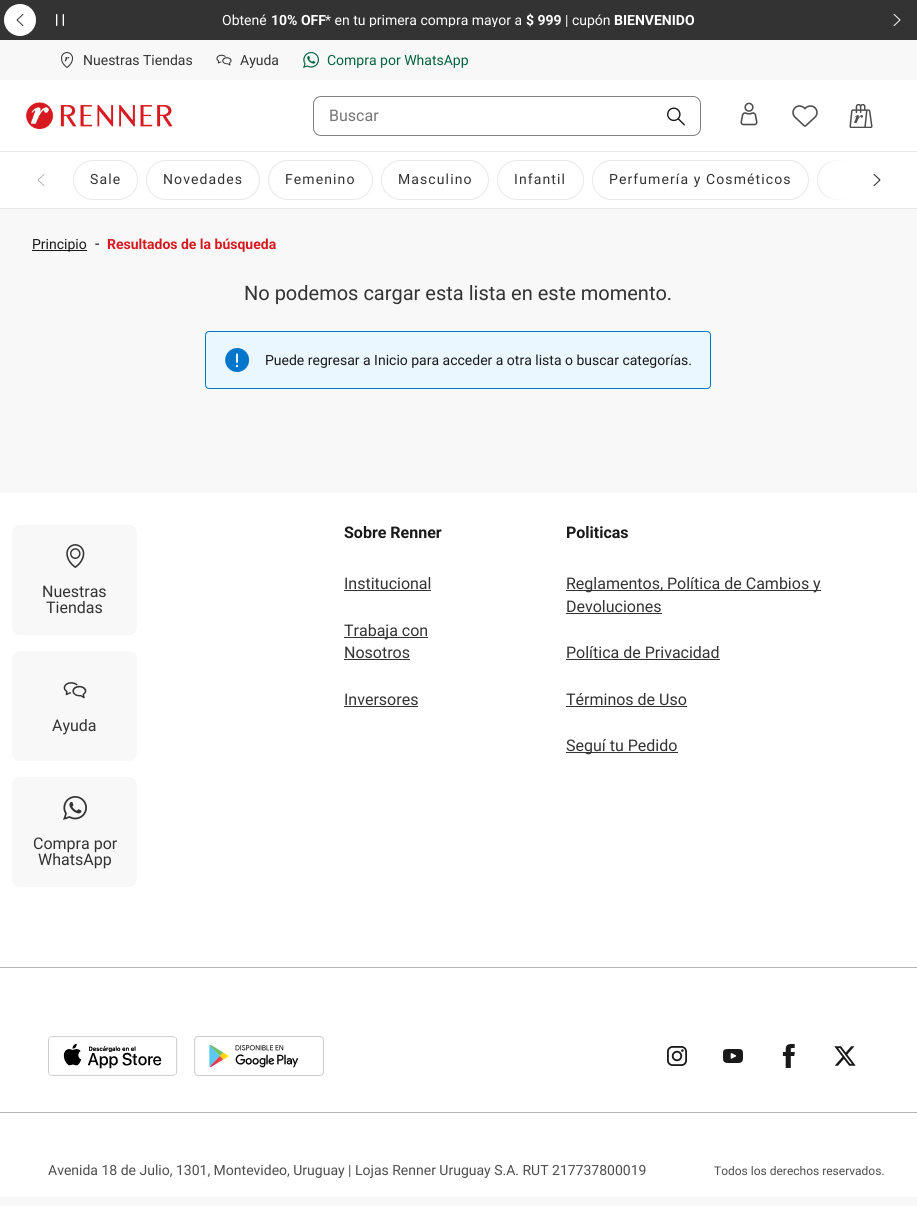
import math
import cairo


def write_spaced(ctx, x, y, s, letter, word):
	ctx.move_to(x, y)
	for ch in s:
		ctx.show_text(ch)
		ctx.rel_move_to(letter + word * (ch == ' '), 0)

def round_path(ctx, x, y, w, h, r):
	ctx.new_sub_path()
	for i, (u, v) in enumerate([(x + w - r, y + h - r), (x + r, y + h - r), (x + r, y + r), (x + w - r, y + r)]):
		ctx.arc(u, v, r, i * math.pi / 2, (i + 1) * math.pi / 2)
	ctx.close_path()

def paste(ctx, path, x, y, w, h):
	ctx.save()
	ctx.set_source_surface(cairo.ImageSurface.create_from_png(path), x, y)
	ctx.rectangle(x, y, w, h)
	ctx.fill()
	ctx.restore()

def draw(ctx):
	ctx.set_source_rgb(0.969, 0.969, 0.969)
	ctx.paint()
	ctx.set_source_rgb(0.2, 0.2, 0.2)
	ctx.rectangle(0, 0, 917, 40)
	ctx.fill()
	ctx.set_source_rgb(1, 1, 1)
	ctx.arc(20, 20, 16, 0, 2 * math.pi)
	ctx.fill()
	paste(ctx, 'media/1.png', 16, 13, 8, 14)
	paste(ctx, 'media/2.png', 56, 14, 8, 12)
	ctx.select_font_face('Roboto')
	ctx.set_font_size(14)
	ctx.move_to(222, 25)
	ctx.show_text('Obtené')
	ctx.select_font_face('Roboto', cairo.FONT_SLANT_NORMAL, cairo.FONT_WEIGHT_BOLD)
	ctx.move_to(271, 25)
	ctx.show_text('10% OFF')
	ctx.save()
	ctx.rectangle(222, 13, 473, 14)
	ctx.clip()
	ctx.select_font_face('Roboto')
	ctx.move_to(325, 25)
	ctx.show_text('* en tu primera compra mayor a')
	ctx.restore()
	ctx.move_to(526, 25)
	ctx.show_text('$ 999')
	ctx.select_font_face('Roboto')
	ctx.move_to(565, 25)
	ctx.show_text('| cupón')
	ctx.select_font_face('Roboto', cairo.FONT_SLANT_NORMAL, cairo.FONT_WEIGHT_BOLD)
	ctx.move_to(614, 25)
	ctx.show_text('BIENVENIDO')
	paste(ctx, 'media/3.png', 893, 13, 8, 14)
	paste(ctx, 'media/4.png', 61, 52, 12, 16)
	ctx.select_font_face('Roboto')
	ctx.set_source_rgb(0.2, 0.2, 0.2)
	ctx.move_to(83, 65)
	ctx.show_text('Nuestras Tiendas')
	paste(ctx, 'media/5.png', 216, 54, 16, 12)
	ctx.move_to(240, 65)
	ctx.show_text('Ayuda')
	paste(ctx, 'media/6.png', 303, 52, 16, 16)
	ctx.set_source_rgb(0.012, 0.384, 0.247)
	ctx.move_to(327, 65)
	ctx.show_text('Compra por WhatsApp')
	ctx.set_source_rgb(1, 1, 1)
	ctx.rectangle(0, 80, 917, 71)
	ctx.fill()
	ctx.set_source_rgb(0.91, 0.91, 0.91)
	ctx.rectangle(0, 151, 917, 1)
	ctx.fill()
	paste(ctx, 'media/7.png', 26, 102, 147, 27)
	round_path(ctx, 313.5, 96.5, 387, 39, 7.5)
	ctx.set_source_rgb(0.502, 0.502, 0.502)
	ctx.set_line_width(1)
	ctx.stroke()
	ctx.set_font_size(16)
	ctx.set_source_rgb(0.459, 0.459, 0.459)
	ctx.move_to(329, 121)
	ctx.show_text('Buscar')
	paste(ctx, 'media/8.png', 667, 107, 18, 19)
	paste(ctx, 'media/9.png', 740, 102, 18, 24)
	paste(ctx, 'media/10.png', 792, 105, 26, 22)
	paste(ctx, 'media/11.png', 849, 104, 24, 24)
	ctx.set_source_rgb(1, 1, 1)
	ctx.rectangle(0, 152, 917, 56)
	ctx.fill()
	ctx.set_source_rgb(0.91, 0.91, 0.91)
	ctx.rectangle(0, 208, 917, 1)
	ctx.fill()
	paste(ctx, 'media/12.png', 37, 174, 8, 12)
	round_path(ctx, 73.5, 160.5, 64, 39, 19.5)
	ctx.stroke()
	ctx.set_font_size(14)
	ctx.set_source_rgb(0.2, 0.2, 0.2)
	write_spaced(ctx, 90, 184, 'Sale', 1.1, 0)
	round_path(ctx, 146.5, 160.5, 113, 39, 19.5)
	ctx.set_source_rgb(0.91, 0.91, 0.91)
	ctx.stroke()
	ctx.set_source_rgb(0.2, 0.2, 0.2)
	write_spaced(ctx, 163, 184, 'Novedades', 1.1, 0)
	round_path(ctx, 268.5, 160.5, 104, 39, 19.5)
	ctx.set_source_rgb(0.91, 0.91, 0.91)
	ctx.stroke()
	ctx.set_source_rgb(0.2, 0.2, 0.2)
	write_spaced(ctx, 285, 184, 'Femenino', 1.1, 0)
	round_path(ctx, 381.5, 160.5, 107, 39, 19.5)
	ctx.set_source_rgb(0.91, 0.91, 0.91)
	ctx.stroke()
	ctx.set_source_rgb(0.2, 0.2, 0.2)
	write_spaced(ctx, 398, 184, 'Masculino', 1.1, 0)
	round_path(ctx, 497.5, 160.5, 86, 39, 19.5)
	ctx.set_source_rgb(0.91, 0.91, 0.91)
	ctx.stroke()
	ctx.set_source_rgb(0.2, 0.2, 0.2)
	write_spaced(ctx, 514, 184, 'Infantil', 1.1, 0)
	round_path(ctx, 592.5, 160.5, 216, 39, 19.5)
	ctx.set_source_rgb(0.91, 0.91, 0.91)
	ctx.stroke()
	ctx.set_source_rgb(0.2, 0.2, 0.2)
	write_spaced(ctx, 609, 184, 'Perfumería y Cosméticos', 1.1, 0)
	ctx.save()
	ctx.rectangle(73, 156, 772, 48)
	ctx.clip()
	round_path(ctx, 817.5, 160.5, 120, 39, 19.5)
	ctx.set_source_rgb(0.91, 0.91, 0.91)
	ctx.stroke()
	ctx.restore()
	gradient = cairo.LinearGradient(884, 180, 820, 180)
	gradient.add_color_stop_rgba(0.6, 1, 1, 1, 1)
	gradient.add_color_stop_rgba(1, 1, 1, 1, 0)
	ctx.set_source(gradient)
	ctx.rectangle(824, 160, 21, 40)
	ctx.fill()
	paste(ctx, 'media/13.png', 873, 173, 8, 14)
	ctx.set_source_rgb(0.098, 0.098, 0.098)
	ctx.rectangle(32, 250, 55, 1)
	ctx.fill()
	ctx.move_to(32, 249)
	ctx.show_text('Principio')
	ctx.set_font_size(16)
	ctx.move_to(95, 249)
	ctx.show_text('-')
	ctx.select_font_face('Roboto', cairo.FONT_SLANT_NORMAL, cairo.FONT_WEIGHT_BOLD)
	ctx.set_font_size(14)
	ctx.set_source_rgb(0.843, 0.098, 0.125)
	ctx.move_to(107, 249)
	ctx.show_text('Resultados de la búsqueda')
	ctx.select_font_face('Roboto')
	ctx.set_font_size(20)
	ctx.set_source_rgb(0.2, 0.2, 0.2)
	ctx.move_to(244, 300)
	ctx.show_text('No podemos cargar esta lista en este momento.')
	ctx.set_source_rgb(0.918, 0.965, 1)
	round_path(ctx, 205.5, 331.5, 505, 57, 3.5)
	ctx.fill_preserve()
	ctx.set_source_rgb(0.008, 0.463, 0.792)
	ctx.stroke()
	paste(ctx, 'media/14.png', 225, 348, 24, 24)
	ctx.set_font_size(14)
	ctx.set_source_rgb(0.098, 0.098, 0.098)
	ctx.move_to(265, 365)
	ctx.show_text('Puede regresar a Inicio para acceder a otra lista o buscar categorías.')
	ctx.set_source_rgb(1, 1, 1)
	ctx.rectangle(0, 493, 917, 704)
	ctx.fill()
	ctx.set_source_rgb(0.969, 0.969, 0.969)
	round_path(ctx, 12, 525, 125, 110, 8)
	ctx.fill()
	paste(ctx, 'media/15.png', 66, 544, 19, 24)
	ctx.set_font_size(16)
	ctx.set_source_rgb(0.2, 0.2, 0.2)
	ctx.move_to(42, 597)
	ctx.show_text('Nuestras')
	ctx.move_to(46, 613)
	ctx.show_text('Tiendas')
	ctx.set_source_rgb(0.969, 0.969, 0.969)
	round_path(ctx, 12, 651, 125, 110, 8)
	ctx.fill()
	paste(ctx, 'media/16.png', 63, 682, 24, 17)
	ctx.set_source_rgb(0.2, 0.2, 0.2)
	ctx.move_to(52, 731)
	ctx.show_text('Ayuda')
	ctx.set_source_rgb(0.969, 0.969, 0.969)
	round_path(ctx, 12, 777, 125, 110, 8)
	ctx.fill()
	paste(ctx, 'media/17.png', 63, 796, 24, 24)
	ctx.set_source_rgb(0.2, 0.2, 0.2)
	ctx.move_to(33, 849)
	ctx.show_text('Compra por')
	ctx.move_to(38, 865)
	ctx.show_text('WhatsApp')
	ctx.select_font_face('Roboto', cairo.FONT_SLANT_NORMAL, cairo.FONT_WEIGHT_BOLD)
	ctx.set_source_rgb(0.098, 0.098, 0.098)
	ctx.move_to(344, 538)
	ctx.show_text('Sobre Renner')
	ctx.select_font_face('Roboto')
	ctx.set_source_rgb(0.2, 0.2, 0.2)
	ctx.move_to(344, 589)
	ctx.show_text('Institucional')
	ctx.rectangle(344, 590, 87, 1)
	ctx.fill()
	ctx.rectangle(344, 637, 84, 1)
	ctx.fill()
	ctx.move_to(344, 636)
	ctx.show_text('Trabaja con')
	ctx.move_to(344, 658)
	ctx.show_text('Nosotros')
	ctx.rectangle(344, 659, 66, 1)
	ctx.fill()
	ctx.move_to(344, 705)
	ctx.show_text('Inversores')
	ctx.rectangle(344, 706, 74, 1)
	ctx.fill()
	ctx.select_font_face('Roboto', cairo.FONT_SLANT_NORMAL, cairo.FONT_WEIGHT_BOLD)
	ctx.set_source_rgb(0.098, 0.098, 0.098)
	ctx.move_to(566, 538)
	ctx.show_text('Politicas')
	ctx.set_source_rgb(0.2, 0.2, 0.2)
	ctx.rectangle(566, 590, 255, 1)
	ctx.fill()
	ctx.select_font_face('Roboto')
	ctx.move_to(566, 589)
	ctx.show_text('Reglamentos, Política de Cambios y')
	ctx.move_to(566, 612)
	ctx.show_text('Devoluciones')
	ctx.rectangle(566, 613, 96, 1)
	ctx.fill()
	ctx.move_to(566, 658)
	ctx.show_text('Política de Privacidad')
	ctx.rectangle(566, 659, 154, 1)
	ctx.fill()
	ctx.move_to(566, 705)
	ctx.show_text('Términos de Uso')
	ctx.rectangle(566, 706, 121, 1)
	ctx.fill()
	ctx.rectangle(566, 752, 112, 1)
	ctx.fill()
	ctx.move_to(566, 751)
	ctx.show_text('Seguí tu Pedido')
	ctx.set_source_rgb(0.702, 0.702, 0.702)
	ctx.rectangle(0, 967, 917, 1)
	ctx.fill()
	paste(ctx, 'media/18.png', 48, 1036, 130, 40)
	paste(ctx, 'media/19.png', 194, 1036, 130, 40)
	paste(ctx, 'media/20.png', 667, 1046, 20, 20)
	paste(ctx, 'media/21.png', 723, 1049, 20, 14)
	paste(ctx, 'media/22.png', 782, 1044, 13, 24)
	paste(ctx, 'media/23.png', 834, 1046, 22, 20)
	ctx.rectangle(0, 1112, 917, 1)
	ctx.fill()
	ctx.set_font_size(14)
	ctx.set_source_rgb(0.302, 0.302, 0.302)
	ctx.move_to(48, 1175)
	ctx.show_text('Avenida 18 de Julio, 1301, Montevideo, Uruguay | Lojas Renner Uruguay S.A. RUT 217737800019')
	ctx.set_font_size(12)
	ctx.move_to(714, 1175)
	ctx.show_text('Todos los derechos reservados.')


surface = cairo.ImageSurface(cairo.FORMAT_RGB24, 917, 1206)
ctx = cairo.Context(surface)
options = cairo.FontOptions()
options.set_hint_metrics(cairo.HINT_METRICS_OFF)
options.set_hint_style(cairo.HINT_STYLE_NONE)
ctx.set_font_options(options)
ctx.set_miter_limit(4)
draw(ctx)
surface.write_to_png('image.png')
